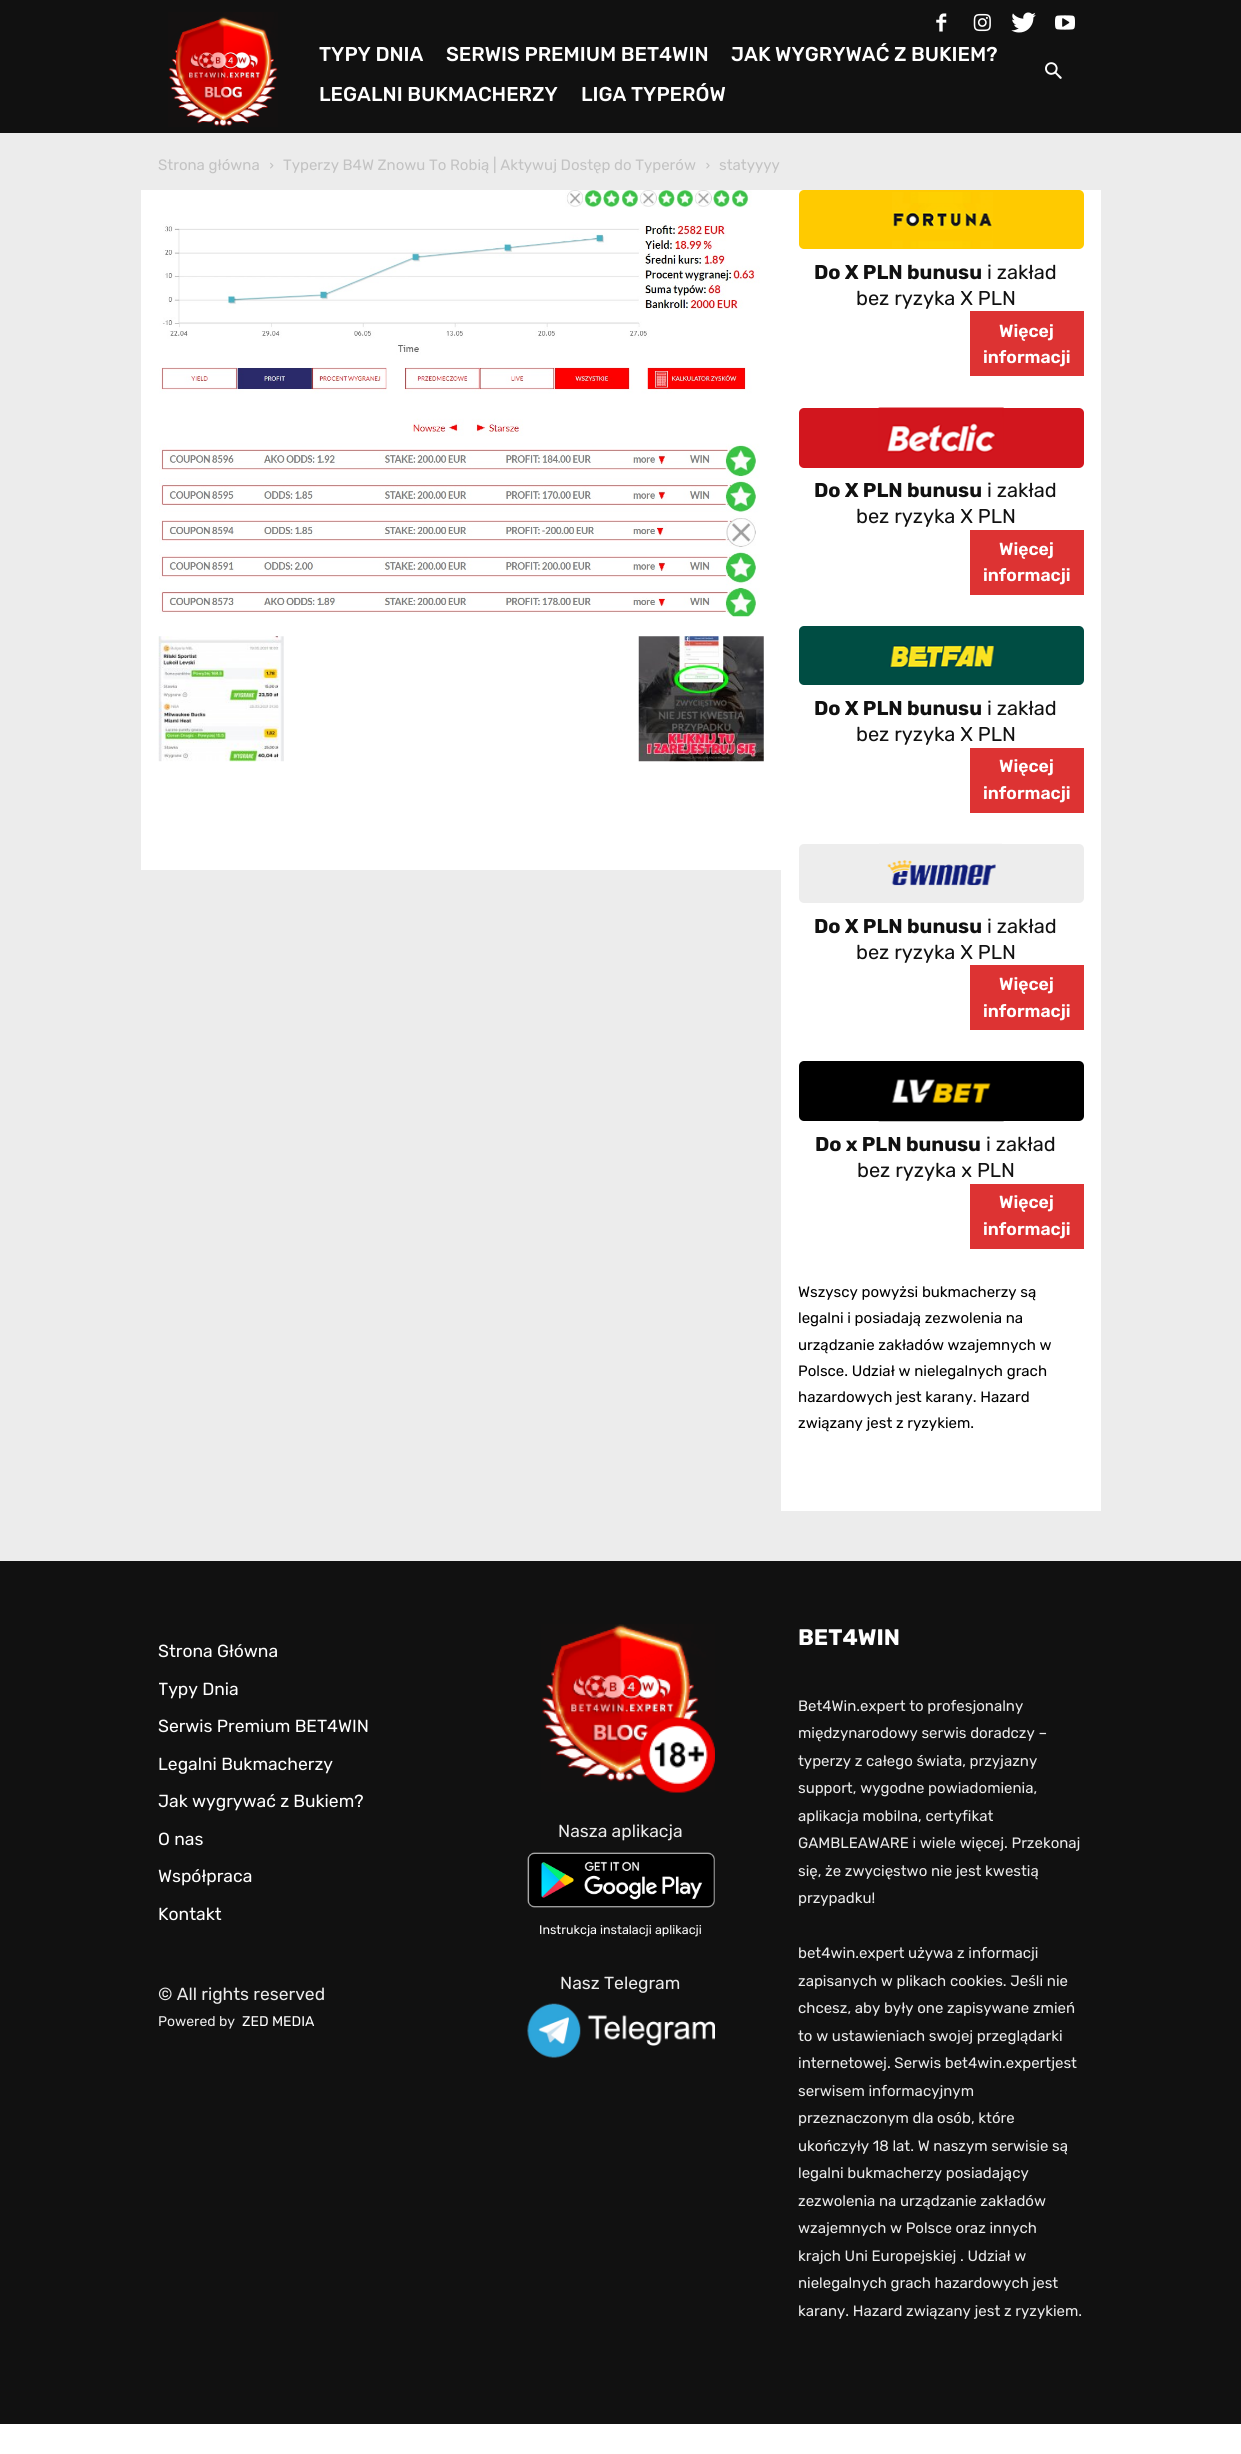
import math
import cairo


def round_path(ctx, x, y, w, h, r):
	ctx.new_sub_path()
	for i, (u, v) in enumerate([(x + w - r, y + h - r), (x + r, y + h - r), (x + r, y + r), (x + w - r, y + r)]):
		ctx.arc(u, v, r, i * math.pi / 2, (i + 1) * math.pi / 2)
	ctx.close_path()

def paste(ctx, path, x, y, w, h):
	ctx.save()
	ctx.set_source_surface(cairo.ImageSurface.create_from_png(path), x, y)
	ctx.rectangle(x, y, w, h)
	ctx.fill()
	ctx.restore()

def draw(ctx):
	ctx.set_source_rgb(1, 1, 1)
	ctx.paint()
	ctx.set_source_rgb(0.067, 0.067, 0.067)
	ctx.rectangle(0, 0, 1241, 115)
	ctx.fill()
	paste(ctx, 'media/1.png', 936, 13, 11, 19)
	paste(ctx, 'media/2.png', 973, 13, 18, 19)
	paste(ctx, 'media/3.png', 1011, 12, 25, 21)
	paste(ctx, 'media/4.png', 1055, 15, 20, 15)
	ctx.rectangle(0, 115, 1241, 18)
	ctx.fill()
	paste(ctx, 'media/5.png', 168, 12, 110, 115)
	ctx.select_font_face('Rubik Medium')
	ctx.set_font_size(20)
	ctx.set_source_rgb(1, 1, 1)
	for x, y, s in [
		(319, 61, 'TYPY DNIA'),
		(446, 61, 'SERWIS PREMIUM BET4WIN'),
		(731, 61, 'JAK WYGRYWAĆ Z BUKIEM?'),
		(319, 101, 'LEGALNI BUKMACHERZY'),
		(581, 101, 'LIGA TYPERÓW'),
	]:
		ctx.move_to(x, y)
		ctx.show_text(s)
	paste(ctx, 'media/6.png', 1045, 62, 17, 17)
	ctx.set_source_rgb(0.925, 0.925, 0.925)
	ctx.rectangle(0, 133, 1241, 1428)
	ctx.fill()
	ctx.select_font_face('Rubik')
	ctx.set_font_size(15)
	ctx.set_source_rgb(0.765, 0.765, 0.765)
	ctx.move_to(158, 170)
	ctx.show_text('Strona główna')
	paste(ctx, 'media/7.png', 270, 162, 4, 7)
	ctx.move_to(283, 170)
	ctx.show_text('Typerzy B4W Znowu To Robią | Aktywuj Dostęp do Typerów')
	paste(ctx, 'media/8.png', 706, 162, 4, 7)
	ctx.move_to(719, 170)
	ctx.show_text('statyyyy')
	ctx.set_source_rgb(1, 1, 1)
	ctx.rectangle(141, 190, 640, 680)
	ctx.fill()
	paste(ctx, 'media/9.png', 159, 190, 601, 427)
	paste(ctx, 'media/10.png', 158, 636, 126, 126)
	paste(ctx, 'media/11.png', 638, 636, 126, 126)
	ctx.rectangle(781, 190, 320, 1321)
	ctx.fill()
	ctx.set_source_rgb(1, 0.792, 0)
	round_path(ctx, 799, 190, 285, 59, 5)
	ctx.fill()
	paste(ctx, 'media/12.png', 892, 192, 101, 56)
	ctx.select_font_face('Rubik', cairo.FONT_SLANT_NORMAL, cairo.FONT_WEIGHT_BOLD)
	ctx.set_font_size(20)
	ctx.set_source_rgb(0.067, 0.067, 0.067)
	ctx.move_to(814, 279)
	ctx.show_text('Do X PLN bunusu')
	ctx.select_font_face('Rubik')
	ctx.move_to(987, 279)
	ctx.show_text('i zakład')
	ctx.move_to(856, 305)
	ctx.show_text('bez ryzyka X PLN')
	ctx.set_source_rgb(0.867, 0.2, 0.2)
	ctx.rectangle(970, 311, 114, 65)
	ctx.fill()
	ctx.select_font_face('Rubik SemiBold')
	ctx.set_font_size(17.5)
	ctx.set_source_rgb(1, 1, 1)
	ctx.move_to(999, 337)
	ctx.show_text('Więcej')
	ctx.move_to(983, 363)
	ctx.show_text('informacji')
	ctx.set_source_rgb(0.824, 0.086, 0.118)
	round_path(ctx, 799, 408, 285, 60, 5)
	ctx.fill()
	paste(ctx, 'media/13.png', 878, 407, 126, 46)
	ctx.select_font_face('Rubik', cairo.FONT_SLANT_NORMAL, cairo.FONT_WEIGHT_BOLD)
	ctx.set_font_size(20)
	ctx.set_source_rgb(0.067, 0.067, 0.067)
	ctx.move_to(814, 497)
	ctx.show_text('Do X PLN bunusu')
	ctx.select_font_face('Rubik')
	ctx.move_to(987, 497)
	ctx.show_text('i zakład')
	ctx.move_to(856, 523)
	ctx.show_text('bez ryzyka X PLN')
	ctx.set_source_rgb(0.867, 0.2, 0.2)
	ctx.rectangle(970, 530, 114, 65)
	ctx.fill()
	ctx.select_font_face('Rubik SemiBold')
	ctx.set_font_size(17.5)
	ctx.set_source_rgb(1, 1, 1)
	ctx.move_to(999, 555)
	ctx.show_text('Więcej')
	ctx.move_to(983, 581)
	ctx.show_text('informacji')
	ctx.set_source_rgb(0, 0.302, 0.263)
	round_path(ctx, 799, 626, 285, 59, 5)
	ctx.fill()
	paste(ctx, 'media/14.png', 889, 645, 107, 23)
	ctx.select_font_face('Rubik', cairo.FONT_SLANT_NORMAL, cairo.FONT_WEIGHT_BOLD)
	ctx.set_font_size(20)
	ctx.set_source_rgb(0.067, 0.067, 0.067)
	ctx.move_to(814, 715)
	ctx.show_text('Do X PLN bunusu')
	ctx.select_font_face('Rubik')
	ctx.move_to(987, 715)
	ctx.show_text('i zakład')
	ctx.move_to(856, 741)
	ctx.show_text('bez ryzyka X PLN')
	ctx.set_source_rgb(0.867, 0.2, 0.2)
	ctx.rectangle(970, 748, 114, 65)
	ctx.fill()
	ctx.select_font_face('Rubik SemiBold')
	ctx.set_font_size(17.5)
	ctx.set_source_rgb(1, 1, 1)
	ctx.move_to(999, 772)
	ctx.show_text('Więcej')
	ctx.move_to(983, 799)
	ctx.show_text('informacji')
	ctx.set_source_rgb(0.929, 0.929, 0.929)
	round_path(ctx, 799, 844, 285, 59, 5)
	ctx.fill()
	paste(ctx, 'media/15.png', 879, 843, 123, 43)
	ctx.select_font_face('Rubik', cairo.FONT_SLANT_NORMAL, cairo.FONT_WEIGHT_BOLD)
	ctx.set_font_size(20)
	ctx.set_source_rgb(0.067, 0.067, 0.067)
	ctx.move_to(814, 933)
	ctx.show_text('Do X PLN bunusu')
	ctx.select_font_face('Rubik')
	ctx.move_to(987, 933)
	ctx.show_text('i zakład')
	ctx.move_to(856, 959)
	ctx.show_text('bez ryzyka X PLN')
	ctx.set_source_rgb(0.867, 0.2, 0.2)
	ctx.rectangle(970, 965, 114, 65)
	ctx.fill()
	ctx.select_font_face('Rubik SemiBold')
	ctx.set_font_size(17.5)
	ctx.set_source_rgb(1, 1, 1)
	ctx.move_to(999, 990)
	ctx.show_text('Więcej')
	ctx.move_to(983, 1017)
	ctx.show_text('informacji')
	ctx.set_source_rgb(0, 0, 0)
	round_path(ctx, 799, 1061, 285, 60, 5)
	ctx.fill()
	paste(ctx, 'media/16.png', 878, 1079, 126, 43)
	ctx.select_font_face('Rubik', cairo.FONT_SLANT_NORMAL, cairo.FONT_WEIGHT_BOLD)
	ctx.set_font_size(20)
	ctx.set_source_rgb(0.067, 0.067, 0.067)
	ctx.move_to(815, 1151)
	ctx.show_text('Do x PLN bunusu')
	ctx.select_font_face('Rubik')
	ctx.move_to(986, 1151)
	ctx.show_text('i zakład')
	ctx.move_to(857, 1177)
	ctx.show_text('bez ryzyka x PLN')
	ctx.set_source_rgb(0.867, 0.2, 0.2)
	ctx.rectangle(970, 1184, 114, 65)
	ctx.fill()
	ctx.select_font_face('Rubik SemiBold')
	ctx.set_font_size(17.5)
	ctx.set_source_rgb(1, 1, 1)
	ctx.move_to(999, 1208)
	ctx.show_text('Więcej')
	ctx.move_to(983, 1235)
	ctx.show_text('informacji')
	ctx.select_font_face('Rubik')
	ctx.set_font_size(15)
	ctx.set_source_rgb(0, 0, 0)
	for x, y, s in [
		(798, 1297, 'Wszyscy powyżsi bukmacherzy są'),
		(798, 1323, 'legalni i posiadają zezwolenia na'),
		(798, 1350, 'urządzanie zakładów wzajemnych w'),
		(798, 1376, 'Polsce. Udział w nielegalnych grach'),
		(798, 1402, 'hazardowych jest karany. Hazard'),
		(798, 1428, 'związany jest z ryzykiem.'),
	]:
		ctx.move_to(x, y)
		ctx.show_text(s)
	ctx.set_source_rgb(0.067, 0.067, 0.067)
	ctx.rectangle(0, 1561, 1241, 863)
	ctx.fill()
	ctx.set_font_size(17.5)
	ctx.set_source_rgb(1, 1, 1)
	ctx.move_to(158, 1657)
	ctx.show_text('Strona Główna')
	ctx.save()
	ctx.rectangle(159, 1616, 285, 318)
	ctx.clip()
	ctx.move_to(158, 1695)
	ctx.show_text('Typy Dnia')
	ctx.restore()
	for x, y, s in [
		(158, 1732, 'Serwis Premium BET4WIN'),
		(158, 1770, 'Legalni Bukmacherzy'),
		(158, 1807, 'Jak wygrywać z Bukiem?'),
		(158, 1845, 'O nas'),
		(158, 1882, 'Współpraca'),
		(158, 1920, 'Kontakt'),
	]:
		ctx.move_to(x, y)
		ctx.show_text(s)
	ctx.set_source_rgb(0.918, 0.918, 0.918)
	ctx.move_to(158, 2000)
	ctx.show_text('© All rights reserved')
	ctx.set_font_size(14)
	ctx.move_to(158, 2026)
	ctx.show_text('Powered by')
	ctx.set_source_rgb(1, 1, 1)
	ctx.move_to(242, 2026)
	ctx.show_text('ZED MEDIA')
	paste(ctx, 'media/17.png', 541, 1624, 174, 169)
	ctx.set_font_size(17.5)
	ctx.set_source_rgb(0.918, 0.918, 0.918)
	ctx.move_to(558, 1837)
	ctx.show_text('Nasza aplikacja')
	paste(ctx, 'media/18.png', 527, 1852, 188, 56)
	ctx.set_font_size(12.5)
	ctx.set_source_rgb(1, 1, 1)
	ctx.move_to(539, 1934)
	ctx.show_text('Instrukcja instalacji aplikacji')
	ctx.set_font_size(17.5)
	ctx.set_source_rgb(0.918, 0.918, 0.918)
	ctx.move_to(560, 1989)
	ctx.show_text('Nasz Telegram')
	paste(ctx, 'media/19.png', 527, 2003, 188, 55)
	ctx.select_font_face('Rubik', cairo.FONT_SLANT_NORMAL, cairo.FONT_WEIGHT_BOLD)
	ctx.set_font_size(22.5)
	ctx.set_source_rgb(1, 1, 1)
	ctx.move_to(798, 1645)
	ctx.show_text('BET4WIN')
	ctx.select_font_face('Rubik')
	ctx.set_font_size(15)
	ctx.set_source_rgb(0.918, 0.918, 0.918)
	for x, y, s in [
		(798, 1711, 'Bet4Win.expert to profesjonalny'),
		(798, 1738, 'międzynarodowy serwis doradczy –'),
		(798, 1766, 'typerzy z całego świata, przyjazny'),
		(798, 1793, 'support, wygodne powiadomienia,'),
		(798, 1821, 'aplikacja mobilna, certyfikat'),
		(798, 1848, 'GAMBLEAWARE i wiele więcej. Przekonaj'),
		(798, 1876, 'się, że zwycięstwo nie jest kwestią'),
		(798, 1903, 'przypadku!'),
		(798, 1958, 'bet4win.expert używa z informacji'),
		(798, 1986, 'zapisanych w plikach cookies. Jeśli nie'),
		(798, 2013, 'chcesz, aby były one zapisywane zmień'),
		(798, 2041, 'to w ustawieniach swojej przeglądarki'),
		(798, 2068, 'internetowej. Serwis bet4win.expertjest'),
		(798, 2096, 'serwisem informacyjnym'),
		(798, 2123, 'przeznaczonym dla osób, które'),
		(798, 2151, 'ukończyły 18 lat. W naszym serwisie są'),
		(798, 2178, 'legalni bukmacherzy posiadający'),
		(798, 2206, 'zezwolenia na urządzanie zakładów'),
		(798, 2233, 'wzajemnych w Polsce oraz innych'),
		(798, 2261, 'krajch Uni Europejskiej . Udział w'),
		(798, 2288, 'nielegalnych grach hazardowych jest'),
		(798, 2316, 'karany. Hazard związany jest z ryzykiem.'),
	]:
		ctx.move_to(x, y)
		ctx.show_text(s)


surface = cairo.ImageSurface(cairo.FORMAT_RGB24, 1241, 2454)
ctx = cairo.Context(surface)
options = cairo.FontOptions()
options.set_hint_metrics(cairo.HINT_METRICS_OFF)
options.set_hint_style(cairo.HINT_STYLE_NONE)
ctx.set_font_options(options)
ctx.set_miter_limit(4)
draw(ctx)
surface.write_to_png('image.png')
